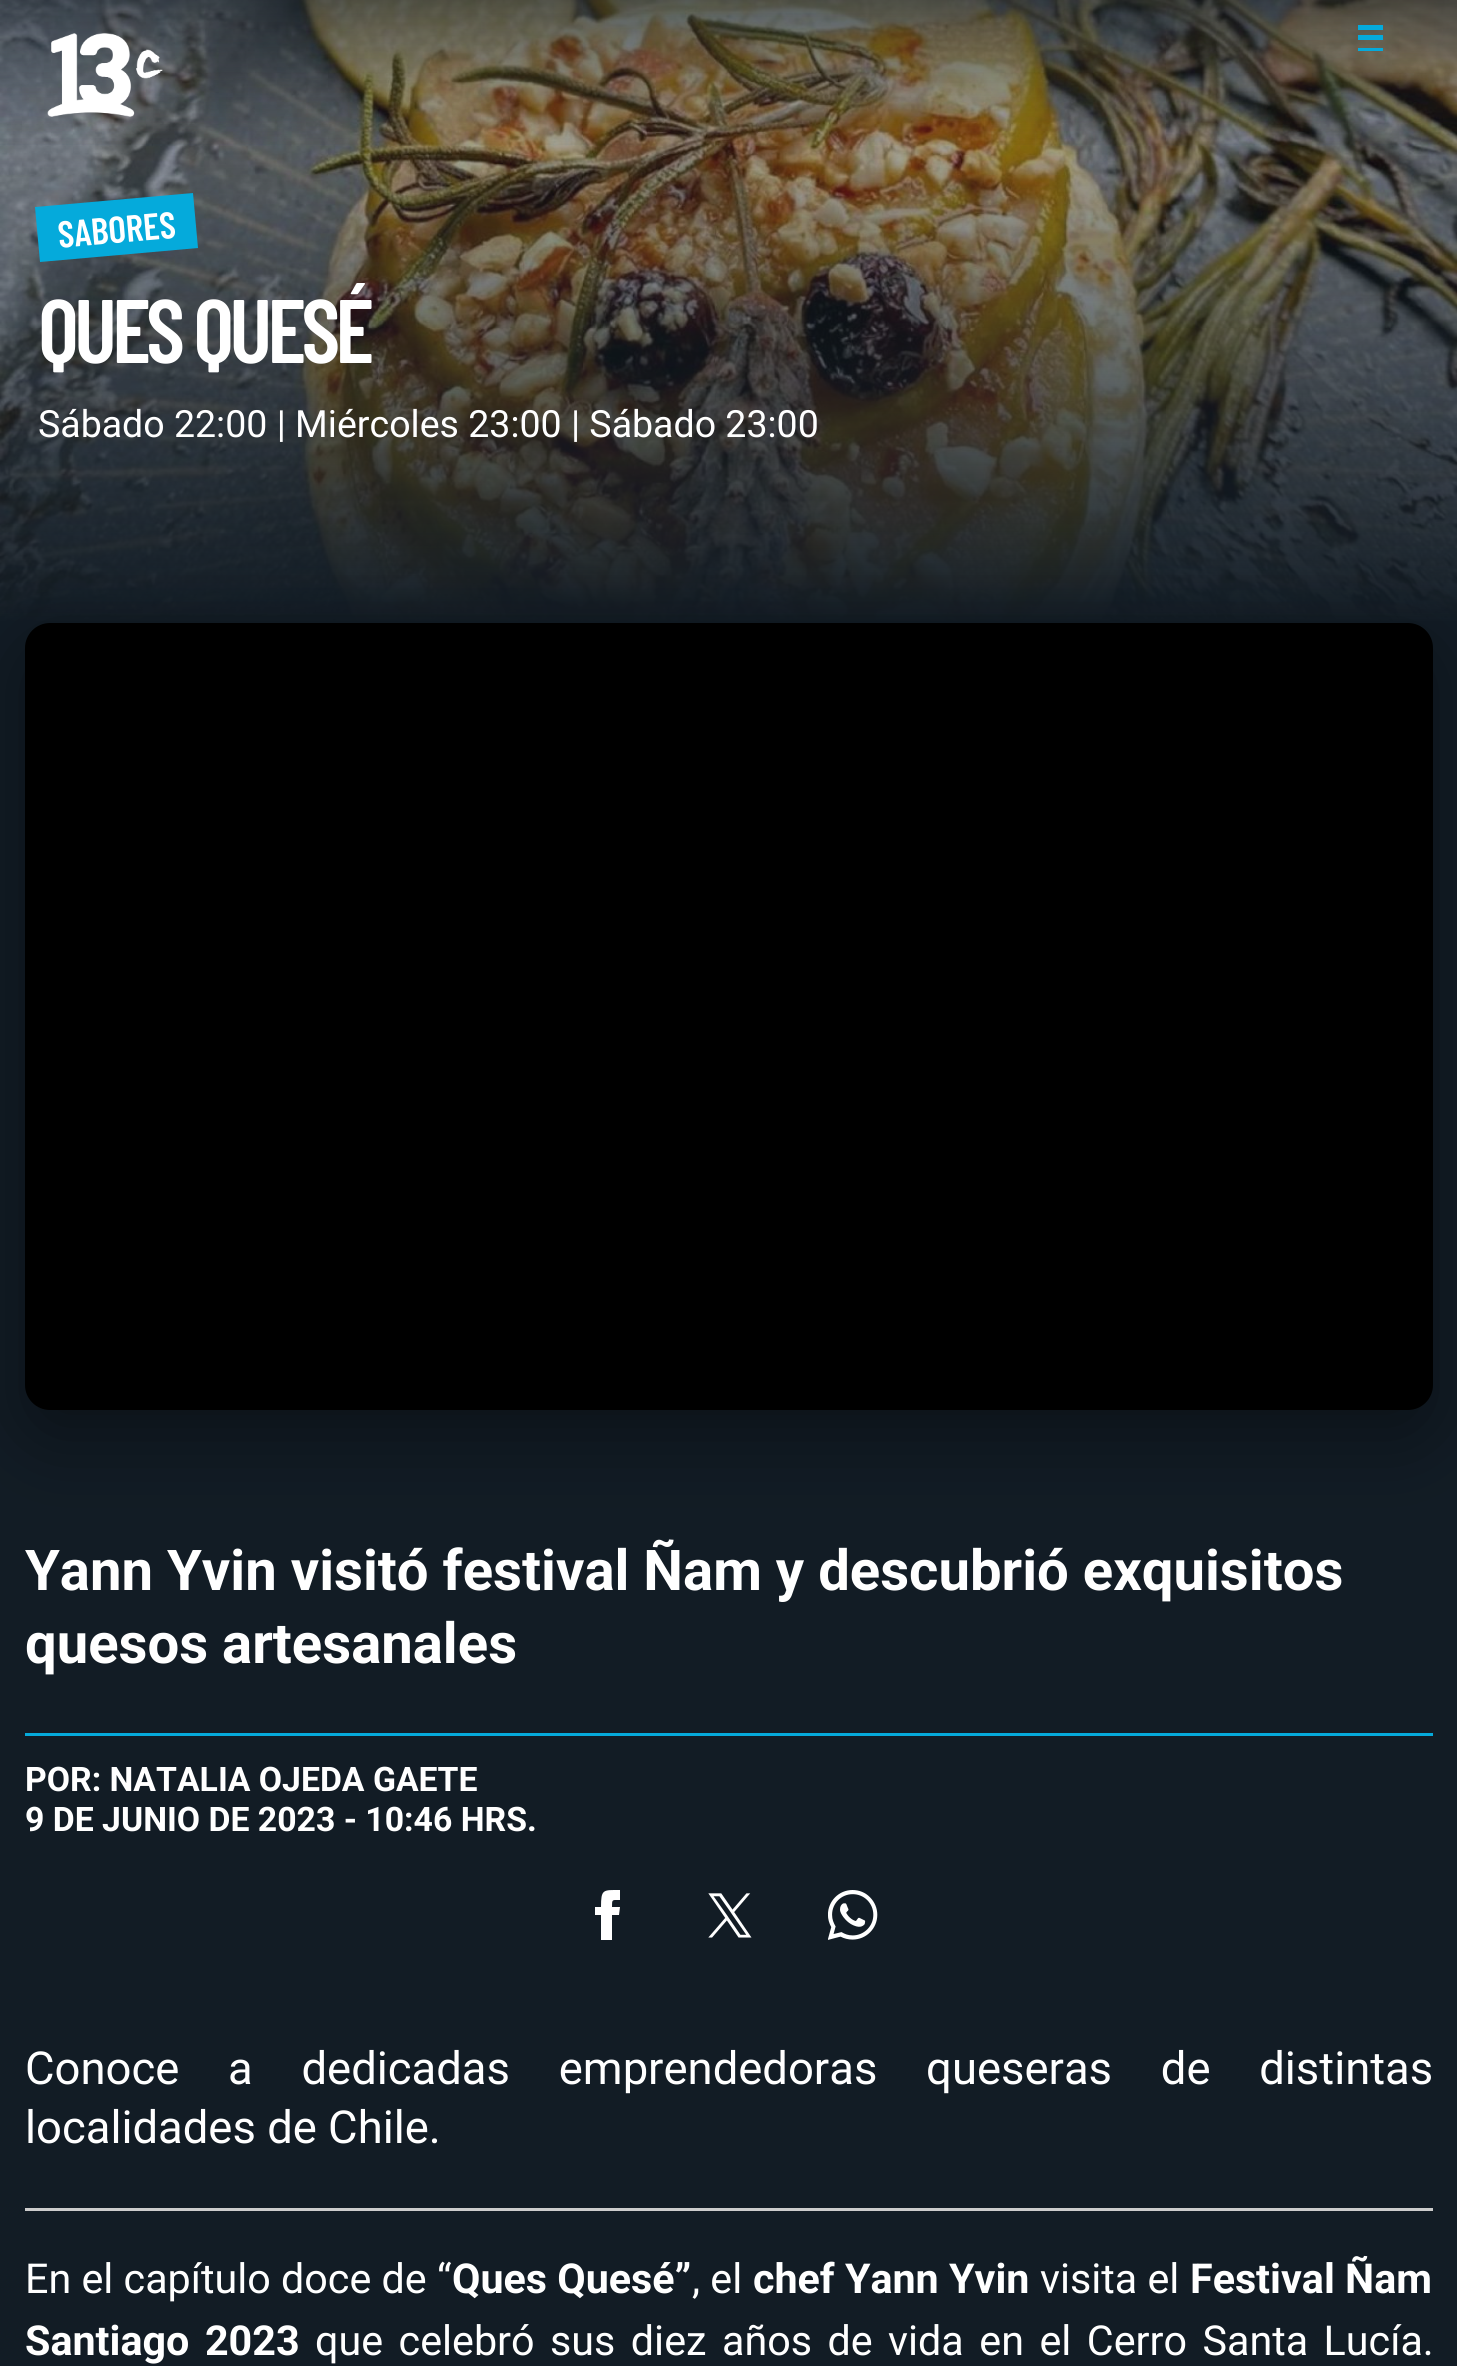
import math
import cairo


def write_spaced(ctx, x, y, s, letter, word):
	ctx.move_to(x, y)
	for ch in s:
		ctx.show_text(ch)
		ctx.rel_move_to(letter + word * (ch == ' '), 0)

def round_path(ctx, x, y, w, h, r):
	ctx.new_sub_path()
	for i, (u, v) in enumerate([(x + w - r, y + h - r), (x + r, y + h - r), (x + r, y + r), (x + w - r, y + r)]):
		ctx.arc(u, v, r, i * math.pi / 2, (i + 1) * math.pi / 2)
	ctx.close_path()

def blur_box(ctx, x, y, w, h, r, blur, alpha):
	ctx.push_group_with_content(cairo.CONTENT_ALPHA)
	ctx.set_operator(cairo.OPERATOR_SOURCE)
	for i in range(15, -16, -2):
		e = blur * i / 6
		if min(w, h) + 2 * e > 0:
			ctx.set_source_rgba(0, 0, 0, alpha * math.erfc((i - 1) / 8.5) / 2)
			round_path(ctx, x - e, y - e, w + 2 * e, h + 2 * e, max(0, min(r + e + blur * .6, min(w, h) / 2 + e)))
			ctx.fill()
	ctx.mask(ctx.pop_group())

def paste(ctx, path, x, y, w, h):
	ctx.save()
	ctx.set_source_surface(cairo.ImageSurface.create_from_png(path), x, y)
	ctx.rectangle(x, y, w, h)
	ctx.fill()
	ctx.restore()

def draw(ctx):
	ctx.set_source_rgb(0.071, 0.11, 0.145)
	ctx.paint()
	paste(ctx, 'media/1.png', 0, 0, 1457, 621)
	gradient = cairo.LinearGradient(729, 0, 729, 625)
	gradient.add_color_stop_rgba(0, 0.071, 0.11, 0.145, 0)
	gradient.add_color_stop_rgba(1, 0.071, 0.11, 0.145, 1)
	ctx.set_source(gradient)
	ctx.rectangle(0, 13, 1457, 608)
	ctx.fill()
	gradient = cairo.LinearGradient(729, 0, 729, 150)
	gradient.add_color_stop_rgba(0, 0.071, 0.11, 0.145, 0.65)
	gradient.add_color_stop_rgba(1, 0.071, 0.11, 0.145, 0)
	ctx.set_source(gradient)
	ctx.rectangle(0, 0, 1457, 145)
	ctx.fill()
	paste(ctx, 'media/2.png', 47, 33, 116, 84)
	ctx.set_source_rgb(0.02, 0.667, 0.859)
	ctx.rectangle(1358, 25, 25, 5)
	ctx.rectangle(1358, 35, 25, 5)
	ctx.rectangle(1358, 48, 25, 3)
	ctx.fill()
	ctx.new_path()
	ctx.move_to(35, 207)
	ctx.line_to(193, 193)
	ctx.line_to(198, 248)
	ctx.line_to(40, 262)
	ctx.close_path()
	ctx.fill()
	ctx.select_font_face('Barlow Condensed SemiBold')
	ctx.set_font_size(37.5)
	ctx.set_source_rgb(1, 1, 1)
	ctx.save()
	ctx.translate(59, 248)
	ctx.rotate(-5 * math.pi / 180)
	ctx.move_to(0, 0)
	ctx.show_text('SABORES')
	ctx.restore()
	ctx.set_font_size(90)
	write_spaced(ctx, 38, 363, 'QUES QUESÉ', -5, 0)
	ctx.select_font_face('Roboto')
	ctx.set_font_size(37.5)
	ctx.move_to(38, 437)
	ctx.show_text('Sábado 22:00 | Miércoles 23:00 | Sábado 23:00')
	ctx.set_source_rgb(0, 0, 0)
	blur_box(ctx, 25, 648, 1408, 787, 25, 40, 0.4)
	ctx.set_source_rgb(0, 0, 0)
	round_path(ctx, 25, 623, 1408, 787, 25)
	ctx.fill()
	ctx.select_font_face('Roboto', cairo.FONT_SLANT_NORMAL, cairo.FONT_WEIGHT_BOLD)
	ctx.set_font_size(56.25)
	ctx.set_source_rgb(1, 1, 1)
	ctx.move_to(25, 1590)
	ctx.show_text('Yann Yvin visitó festival Ñam y descubrió exquisitos')
	ctx.move_to(25, 1663)
	ctx.show_text('quesos artesanales')
	ctx.set_source_rgb(0.02, 0.667, 0.859)
	ctx.rectangle(25, 1733, 1408, 3)
	ctx.fill()
	ctx.set_font_size(33.75)
	ctx.set_source_rgb(1, 1, 1)
	ctx.move_to(25, 1791)
	ctx.show_text('POR: NATALIA OJEDA GAETE')
	ctx.move_to(25, 1831)
	ctx.show_text('9 DE JUNIO DE 2023 - 10:46 HRS.')
	ctx.new_path()
	ctx.move_to(601, 1907)
	ctx.line_to(595, 1907)
	ctx.line_to(595, 1915)
	ctx.line_to(601, 1915)
	ctx.line_to(601, 1940)
	ctx.line_to(612, 1940)
	ctx.line_to(612, 1915)
	ctx.line_to(619, 1915)
	ctx.line_to(620, 1907)
	ctx.line_to(612, 1907)
	ctx.curve_to(612, 1899, 612, 1900, 620, 1900)
	ctx.line_to(620, 1890)
	ctx.curve_to(603, 1890, 601, 1889, 601, 1907)
	ctx.close_path()
	ctx.fill()
	paste(ctx, 'media/3.png', 708, 1893, 44, 45)
	paste(ctx, 'media/4.png', 828, 1890, 50, 50)
	ctx.set_source_rgb(0.8, 0.8, 0.8)
	ctx.rectangle(25, 2208, 1408, 3)
	ctx.fill()
	ctx.select_font_face('Roboto')
	ctx.set_font_size(45.4)
	ctx.set_source_rgb(1, 1, 1)
	write_spaced(ctx, 25, 2084, 'Conoce a dedicadas emprendedoras queseras de distintas', 0, 37.5)
	ctx.move_to(25, 2143)
	ctx.show_text('localidades de Chile.')
	ctx.set_font_size(41.25)
	ctx.move_to(25, 2293)
	ctx.show_text('En el capítulo doce de “')
	ctx.select_font_face('Roboto', cairo.FONT_SLANT_NORMAL, cairo.FONT_WEIGHT_BOLD)
	ctx.move_to(452, 2293)
	ctx.show_text('Ques Quesé”')
	ctx.select_font_face('Roboto')
	ctx.move_to(692, 2293)
	ctx.show_text(', el')
	ctx.select_font_face('Roboto', cairo.FONT_SLANT_NORMAL, cairo.FONT_WEIGHT_BOLD)
	ctx.move_to(753, 2293)
	ctx.show_text('chef Yann Yvin')
	ctx.select_font_face('Roboto')
	ctx.move_to(1040, 2293)
	ctx.show_text('visita el')
	ctx.select_font_face('Roboto', cairo.FONT_SLANT_NORMAL, cairo.FONT_WEIGHT_BOLD)
	ctx.move_to(1190, 2293)
	ctx.show_text('Festival Ñam')
	write_spaced(ctx, 25, 2355, 'Santiago 2023', 0, 5.25)
	ctx.select_font_face('Roboto')
	write_spaced(ctx, 315, 2355, 'que celebró sus diez años de vida en el Cerro Santa Lucía.', 0, 5.25)


surface = cairo.ImageSurface(cairo.FORMAT_RGB24, 1457, 2366)
ctx = cairo.Context(surface)
options = cairo.FontOptions()
options.set_hint_metrics(cairo.HINT_METRICS_OFF)
options.set_hint_style(cairo.HINT_STYLE_NONE)
ctx.set_font_options(options)
ctx.set_miter_limit(4)
draw(ctx)
surface.write_to_png('image.png')
